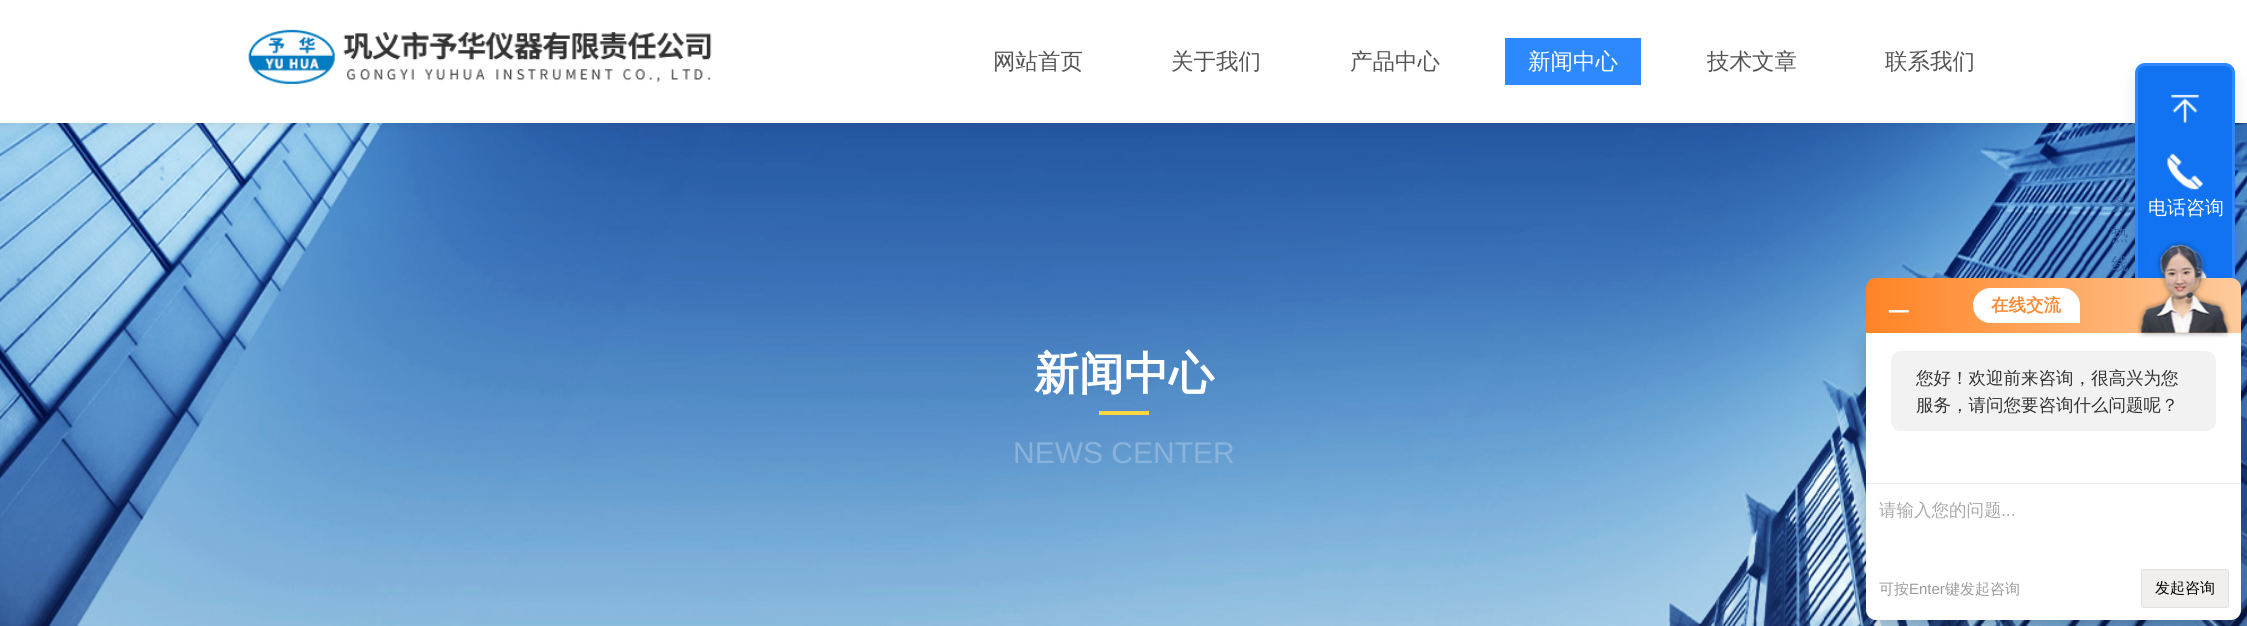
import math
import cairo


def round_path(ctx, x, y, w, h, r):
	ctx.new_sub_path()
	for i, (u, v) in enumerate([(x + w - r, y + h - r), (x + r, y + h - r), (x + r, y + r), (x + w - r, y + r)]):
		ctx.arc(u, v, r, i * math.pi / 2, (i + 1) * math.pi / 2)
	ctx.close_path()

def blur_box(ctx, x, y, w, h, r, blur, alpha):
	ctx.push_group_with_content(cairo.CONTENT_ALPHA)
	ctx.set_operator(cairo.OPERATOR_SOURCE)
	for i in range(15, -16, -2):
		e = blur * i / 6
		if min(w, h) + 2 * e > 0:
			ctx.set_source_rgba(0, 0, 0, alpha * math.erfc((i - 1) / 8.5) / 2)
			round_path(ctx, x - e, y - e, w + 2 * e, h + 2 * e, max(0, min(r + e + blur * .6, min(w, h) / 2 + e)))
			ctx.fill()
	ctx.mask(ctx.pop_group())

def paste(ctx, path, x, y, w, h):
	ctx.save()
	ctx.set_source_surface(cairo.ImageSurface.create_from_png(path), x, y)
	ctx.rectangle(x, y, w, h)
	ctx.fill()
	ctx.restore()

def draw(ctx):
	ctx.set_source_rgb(1, 1, 1)
	ctx.paint()
	paste(ctx, 'media/5.png', 0, 123, 2247, 503)
	ctx.set_source_rgb(0, 0, 0)
	blur_box(ctx, 0, 0, 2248, 123, 0, 6, 0.1)
	ctx.set_source_rgb(1, 1, 1)
	ctx.rectangle(0, 0, 2247, 123)
	ctx.fill()
	paste(ctx, 'media/1.png', 248, 29, 464, 55)
	ctx.select_font_face('WenQuanYi Zen Hei Medium')
	ctx.set_font_size(22.5)
	ctx.set_source_rgb(0.333, 0.333, 0.333)
	for x, y, s in [
		(993, 69, '网站首页'),
		(1171, 69, '关于我们'),
		(1350, 69, '产品中心'),
	]:
		ctx.move_to(x, y)
		ctx.show_text(s)
	ctx.set_source_rgb(0.18, 0.537, 1)
	ctx.rectangle(1505, 38, 136, 47)
	ctx.fill()
	ctx.set_source_rgb(1, 1, 1)
	ctx.move_to(1528, 69)
	ctx.show_text('新闻中心')
	ctx.set_source_rgb(0.333, 0.333, 0.333)
	ctx.move_to(1707, 69)
	ctx.show_text('技术文章')
	ctx.move_to(1885, 69)
	ctx.show_text('联系我们')
	ctx.set_source_rgb(0, 0, 0)
	blur_box(ctx, 2135, 70, 100, 274, 10, 7.5, 0.1)
	ctx.set_source_rgb(0.067, 0.451, 0.949)
	round_path(ctx, 2136.5, 64.5, 97, 270, 8.5)
	ctx.fill_preserve()
	ctx.set_source_rgb(0.18, 0.537, 1)
	ctx.set_line_width(3)
	ctx.stroke()
	paste(ctx, 'media/2.png', 2171, 94, 28, 29)
	ctx.set_font_size(17.5)
	ctx.set_source_rgb(0.224, 0.42, 0.675)
	ctx.move_to(2111, 210)
	ctx.show_text('务')
	ctx.move_to(2111, 240)
	ctx.show_text('热')
	ctx.set_source_rgb(0.212, 0.396, 0.643)
	ctx.move_to(2111, 270)
	ctx.show_text('线')
	paste(ctx, 'media/3.png', 2167, 153, 36, 37)
	ctx.set_font_size(19)
	ctx.set_source_rgb(1, 1, 1)
	ctx.move_to(2148, 214)
	ctx.show_text('电话咨询')
	paste(ctx, 'media/4.png', 2166, 267, 41, 11)
	ctx.select_font_face('WenQuanYi Zen Hei', cairo.FONT_SLANT_NORMAL, cairo.FONT_WEIGHT_BOLD)
	ctx.set_font_size(45)
	ctx.move_to(1034, 389)
	ctx.show_text('新闻中心')
	ctx.set_source_rgb(1, 0.835, 0.259)
	ctx.rectangle(1099, 411, 50, 4)
	ctx.fill()
	ctx.select_font_face('Liberation Sans')
	ctx.set_font_size(30)
	ctx.set_source_rgb(0.537, 0.702, 0.859)
	ctx.move_to(1013, 463)
	ctx.show_text('NEWS CENTER')
	ctx.set_source_rgb(0, 0, 0)
	blur_box(ctx, 1866, 338, 375, 287, 10, 10, 0.2)
	gradient = cairo.LinearGradient(1866, 305, 2241, 305)
	gradient.add_color_stop_rgba(0, 1, 0.514, 0.141, 1)
	gradient.add_color_stop_rgba(1, 0.996, 0.796, 0.612, 1)
	ctx.set_source(gradient)
	ctx.new_path()
	ctx.move_to(1876, 278)
	ctx.line_to(2231, 278)
	ctx.curve_to(2236.5, 278, 2241, 282.5, 2241, 288)
	ctx.line_to(2241, 333)
	ctx.line_to(1866, 333)
	ctx.line_to(1866, 288)
	ctx.curve_to(1866, 282.5, 1870.5, 278, 1876, 278)
	ctx.close_path()
	ctx.fill()
	paste(ctx, 'media/6.png', 1888, 309, 21, 4)
	ctx.set_source_rgb(1, 1, 1)
	ctx.new_path()
	ctx.move_to(1990.5, 288)
	ctx.line_to(2062.5, 288)
	ctx.curve_to(2072, 288, 2080, 296, 2080, 305.5)
	ctx.line_to(2080, 323)
	ctx.line_to(1990.5, 323)
	ctx.curve_to(1981, 323, 1973, 315, 1973, 305.5)
	ctx.curve_to(1973, 296, 1981, 288, 1990.5, 288)
	ctx.close_path()
	ctx.fill()
	ctx.select_font_face('WenQuanYi Zen Hei', cairo.FONT_SLANT_NORMAL, cairo.FONT_WEIGHT_BOLD)
	ctx.set_font_size(17.5)
	ctx.set_source_rgb(0.984, 0.545, 0.212)
	ctx.move_to(1991, 311)
	ctx.show_text('在线交流')
	ctx.set_source_rgb(1, 1, 1)
	ctx.new_path()
	ctx.move_to(1866, 333)
	ctx.line_to(2241, 333)
	ctx.line_to(2241, 610)
	ctx.curve_to(2241, 615.5, 2236.5, 620, 2231, 620)
	ctx.line_to(1876, 620)
	ctx.curve_to(1870.5, 620, 1866, 615.5, 1866, 610)
	ctx.close_path()
	ctx.fill()
	paste(ctx, 'media/7.png', 2137, 241, 95, 97)
	ctx.set_source_rgb(0.949, 0.949, 0.949)
	round_path(ctx, 1891, 351, 325, 80, 10)
	ctx.fill()
	ctx.select_font_face('WenQuanYi Zen Hei Medium')
	ctx.set_source_rgb(0.2, 0.2, 0.2)
	ctx.move_to(1916, 384)
	ctx.show_text('您好！欢迎前来咨询，很高兴为您')
	ctx.move_to(1916, 411)
	ctx.show_text('服务，请问您要咨询什么问题呢？')
	ctx.set_source_rgb(0.918, 0.918, 0.918)
	ctx.rectangle(1866, 483, 375, 1)
	ctx.fill()
	ctx.set_source_rgb(0.667, 0.667, 0.667)
	ctx.move_to(1879, 516)
	ctx.show_text('请输入您的问题')
	ctx.select_font_face('Liberation Sans')
	ctx.move_to(2001, 516)
	ctx.show_text('...')
	ctx.select_font_face('WenQuanYi Zen Hei Medium')
	ctx.set_font_size(15)
	ctx.set_source_rgb(0.6, 0.6, 0.6)
	ctx.move_to(1879, 594)
	ctx.show_text('可按')
	ctx.select_font_face('Liberation Sans')
	ctx.move_to(1909, 594)
	ctx.show_text('Enter')
	ctx.select_font_face('WenQuanYi Zen Hei Medium')
	ctx.move_to(1945, 594)
	ctx.show_text('键发起咨询')
	ctx.set_source_rgb(0.941, 0.937, 0.929)
	round_path(ctx, 2141.5, 569.5, 87, 38, 2)
	ctx.fill_preserve()
	ctx.set_source_rgb(0.886, 0.886, 0.886)
	ctx.set_line_width(1)
	ctx.stroke()
	ctx.set_source_rgb(0, 0, 0)
	ctx.move_to(2155, 593)
	ctx.show_text('发起咨询')


surface = cairo.ImageSurface(cairo.FORMAT_RGB24, 2247, 626)
ctx = cairo.Context(surface)
options = cairo.FontOptions()
options.set_hint_metrics(cairo.HINT_METRICS_OFF)
options.set_hint_style(cairo.HINT_STYLE_NONE)
ctx.set_font_options(options)
ctx.set_miter_limit(4)
draw(ctx)
surface.write_to_png('image.png')
